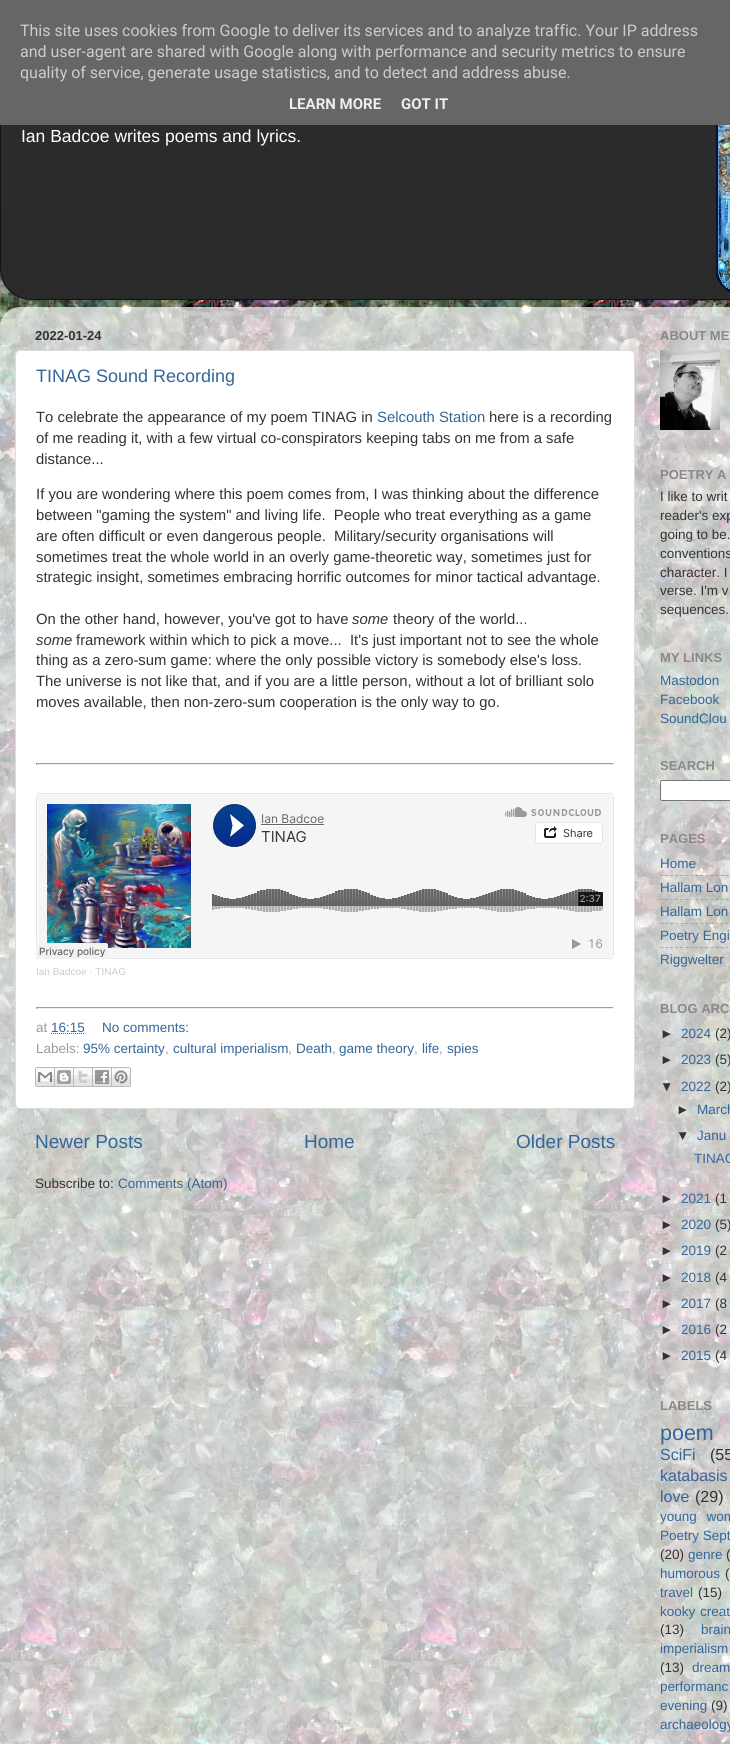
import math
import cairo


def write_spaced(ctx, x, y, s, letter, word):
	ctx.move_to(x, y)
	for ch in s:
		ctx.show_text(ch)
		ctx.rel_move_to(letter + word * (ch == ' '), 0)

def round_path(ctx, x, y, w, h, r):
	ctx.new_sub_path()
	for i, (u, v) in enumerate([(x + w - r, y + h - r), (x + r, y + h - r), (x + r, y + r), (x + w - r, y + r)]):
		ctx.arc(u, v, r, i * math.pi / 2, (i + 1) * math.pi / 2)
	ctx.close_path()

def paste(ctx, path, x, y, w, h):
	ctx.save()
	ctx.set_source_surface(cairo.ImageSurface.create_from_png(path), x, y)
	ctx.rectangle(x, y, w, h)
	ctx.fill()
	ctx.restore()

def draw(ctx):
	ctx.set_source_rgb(1, 1, 1)
	ctx.paint()
	paste(ctx, 'media/1.png', 0, 270, 730, 1474)
	ctx.set_source_rgb(0.4, 0.4, 0.4)
	ctx.rectangle(0, 0, 730, 125)
	ctx.fill()
	ctx.select_font_face('Roboto')
	ctx.set_font_size(16)
	ctx.set_source_rgb(0.8, 0.8, 0.8)
	for x, y, s in [
		(20, 36, 'This site uses cookies from Google to deliver its services and to analyze traffic. Your IP address'),
		(20, 57, 'and user-agent are shared with Google along with performance and security metrics to ensure'),
		(20, 78, 'quality of service, generate usage statistics, and to detect and address abuse.'),
	]:
		ctx.move_to(x, y)
		ctx.show_text(s)
	ctx.select_font_face('Roboto', cairo.FONT_SLANT_NORMAL, cairo.FONT_WEIGHT_BOLD)
	ctx.set_font_size(15)
	ctx.set_source_rgb(0.933, 0.933, 0.933)
	ctx.move_to(289, 109)
	ctx.show_text('LEARN MORE')
	ctx.move_to(401, 109)
	ctx.show_text('GOT IT')
	paste(ctx, 'media/2.png', 0, 125, 730, 175)
	ctx.select_font_face('Liberation Sans')
	ctx.set_font_size(17.5)
	ctx.set_source_rgb(1, 1, 1)
	ctx.move_to(21, 142)
	ctx.show_text('Ian Badcoe writes poems and lyrics.')
	paste(ctx, 'media/3.png', 0, 307, 730, 1437)
	ctx.select_font_face('Liberation Sans', cairo.FONT_SLANT_NORMAL, cairo.FONT_WEIGHT_BOLD)
	ctx.set_font_size(13)
	ctx.set_source_rgb(0.2, 0.2, 0.2)
	ctx.move_to(35, 340)
	ctx.show_text('2022-01-24')
	ctx.set_source_rgb(1, 1, 1)
	round_path(ctx, 15.5, 350.5, 619, 758, 4.5)
	ctx.fill_preserve()
	ctx.set_source_rgb(0.867, 0.867, 0.867)
	ctx.set_line_width(1)
	ctx.stroke()
	ctx.select_font_face('Liberation Sans')
	ctx.set_font_size(18)
	ctx.set_source_rgb(0.2, 0.4, 0.6)
	ctx.move_to(36, 382)
	ctx.show_text('TINAG Sound Recording')
	ctx.set_font_size(14.85)
	ctx.set_source_rgb(0.2, 0.2, 0.2)
	ctx.move_to(36, 422)
	ctx.show_text('To celebrate the appearance of my poem TINAG in')
	ctx.set_source_rgb(0.2, 0.4, 0.6)
	ctx.move_to(377, 422)
	ctx.show_text('Selcouth Station')
	ctx.set_source_rgb(0.2, 0.2, 0.2)
	for x, y, s in [
		(489, 422, 'here is a recording'),
		(36, 443, 'of me reading it, with a few virtual co-conspirators keeping tabs on me from a safe'),
		(36, 464, 'distance...'),
		(36, 499, 'If you are wondering where this poem comes from, I was thinking about the difference'),
		(36, 520, 'between "gaming the system" and living life.  People who treat everything as a game'),
		(36, 541, 'are often difficult or even dangerous people.  Military/security organisations will'),
		(36, 562, 'sometimes treat the whole world in an overly game-theoretic way, sometimes just for'),
		(36, 582, 'strategic insight, sometimes embracing horrific outcomes for minor tactical advantage.'),
		(36, 624, 'On the other hand, however, you\'ve got to have'),
	]:
		ctx.move_to(x, y)
		ctx.show_text(s)
	ctx.select_font_face('Liberation Sans', cairo.FONT_SLANT_ITALIC)
	ctx.move_to(352, 624)
	ctx.show_text('some')
	ctx.select_font_face('Liberation Sans')
	ctx.move_to(393, 624)
	ctx.show_text('theory of the world...')
	ctx.select_font_face('Liberation Sans', cairo.FONT_SLANT_ITALIC)
	ctx.move_to(36, 645)
	ctx.show_text('some')
	ctx.select_font_face('Liberation Sans')
	for x, y, s in [
		(76, 645, 'framework within which to pick a move...  It\'s just important not to see the whole'),
		(36, 665, 'thing as a zero-sum game: where the only possible victory is somebody else\'s loss.'),
		(36, 686, 'The universe is not like that, and if you are a little person, without a lot of brilliant solo'),
		(36, 707, 'moves available, then non-zero-sum cooperation is the only way to go.'),
	]:
		ctx.move_to(x, y)
		ctx.show_text(s)
	ctx.set_source_rgb(0.624, 0.624, 0.624)
	ctx.rectangle(36, 763, 578, 1)
	ctx.fill()
	ctx.set_source_rgb(0.933, 0.933, 0.933)
	ctx.rectangle(613, 763, 1, 2)
	ctx.rectangle(36, 764, 578, 1)
	ctx.fill()
	ctx.set_source_rgb(0.624, 0.624, 0.624)
	ctx.rectangle(36, 763, 1, 2)
	ctx.fill()
	paste(ctx, 'media/4.png', 36, 793, 578, 166)
	ctx.set_font_size(10)
	ctx.set_source_rgb(0.8, 0.8, 0.8)
	ctx.move_to(36, 975)
	ctx.show_text('Ian Badcoe · TINAG')
	ctx.set_source_rgb(0.624, 0.624, 0.624)
	ctx.rectangle(36, 1007, 578, 1)
	ctx.fill()
	ctx.set_source_rgb(0.933, 0.933, 0.933)
	ctx.rectangle(613, 1007, 1, 2)
	ctx.rectangle(36, 1008, 578, 1)
	ctx.fill()
	ctx.set_source_rgb(0.624, 0.624, 0.624)
	ctx.rectangle(36, 1007, 1, 2)
	ctx.fill()
	ctx.set_font_size(13.5)
	ctx.set_source_rgb(0.6, 0.6, 0.6)
	ctx.move_to(36, 1032)
	ctx.show_text('at')
	ctx.set_source_rgb(0.2, 0.4, 0.6)
	ctx.move_to(51, 1032)
	ctx.show_text('16:15')
	ctx.new_path()
	ctx.move_to(51, 1033.5)
	ctx.line_to(85, 1033.5)
	ctx.set_dash([1, 1])
	ctx.stroke()
	ctx.move_to(102, 1032)
	ctx.show_text('No comments:')
	ctx.set_source_rgb(0.6, 0.6, 0.6)
	ctx.move_to(36, 1053)
	ctx.show_text('Labels:')
	ctx.set_source_rgb(0.2, 0.4, 0.6)
	ctx.move_to(83, 1053)
	ctx.show_text('95% certainty')
	ctx.set_source_rgb(0.6, 0.6, 0.6)
	ctx.move_to(165, 1053)
	ctx.show_text(',')
	ctx.set_source_rgb(0.2, 0.4, 0.6)
	ctx.move_to(173, 1053)
	ctx.show_text('cultural imperialism')
	ctx.set_source_rgb(0.6, 0.6, 0.6)
	ctx.move_to(288, 1053)
	ctx.show_text(',')
	ctx.set_source_rgb(0.2, 0.4, 0.6)
	ctx.move_to(296, 1053)
	ctx.show_text('Death')
	ctx.set_source_rgb(0.6, 0.6, 0.6)
	ctx.move_to(332, 1053)
	ctx.show_text(',')
	ctx.set_source_rgb(0.2, 0.4, 0.6)
	ctx.move_to(339, 1053)
	ctx.show_text('game theory')
	ctx.set_source_rgb(0.6, 0.6, 0.6)
	ctx.move_to(414, 1053)
	ctx.show_text(',')
	ctx.set_source_rgb(0.2, 0.4, 0.6)
	ctx.move_to(422, 1053)
	ctx.show_text('life')
	ctx.set_source_rgb(0.6, 0.6, 0.6)
	ctx.move_to(439, 1053)
	ctx.show_text(',')
	ctx.set_source_rgb(0.2, 0.4, 0.6)
	ctx.move_to(447, 1053)
	ctx.show_text('spies')
	paste(ctx, 'media/5.png', 35, 1067, 20, 20)
	paste(ctx, 'media/6.png', 55, 1067, 19, 20)
	paste(ctx, 'media/7.png', 74, 1067, 19, 20)
	paste(ctx, 'media/8.png', 93, 1067, 19, 20)
	paste(ctx, 'media/9.png', 112, 1067, 19, 20)
	ctx.set_font_size(19)
	for x, y, s in [
		(35, 1148, 'Newer Posts'),
		(304, 1148, 'Home'),
		(516, 1148, 'Older Posts'),
	]:
		ctx.move_to(x, y)
		ctx.show_text(s)
	ctx.set_font_size(13.5)
	ctx.set_source_rgb(0.2, 0.2, 0.2)
	ctx.move_to(35, 1188)
	ctx.show_text('Subscribe to:')
	ctx.set_source_rgb(0.2, 0.4, 0.6)
	ctx.move_to(118, 1188)
	ctx.show_text('Comments (Atom)')
	ctx.select_font_face('Liberation Sans', cairo.FONT_SLANT_NORMAL, cairo.FONT_WEIGHT_BOLD)
	ctx.set_font_size(13)
	ctx.set_source_rgb(0.533, 0.533, 0.533)
	ctx.move_to(660, 340)
	ctx.show_text('ABOUT ME')
	paste(ctx, 'media/10.png', 660, 350, 60, 80)
	ctx.move_to(660, 479)
	ctx.show_text('POETRY A')
	ctx.select_font_face('Liberation Sans')
	ctx.set_font_size(13.5)
	ctx.set_source_rgb(0.2, 0.2, 0.2)
	for x, y, s in [
		(660, 501, 'I like to writ'),
		(660, 520, 'reader\'s exp'),
		(660, 539, 'going to be.'),
		(660, 558, 'conventions'),
		(660, 577, 'character. I'),
		(660, 595, 'verse. I\'m v'),
		(660, 614, 'sequences.'),
	]:
		ctx.move_to(x, y)
		ctx.show_text(s)
	ctx.select_font_face('Liberation Sans', cairo.FONT_SLANT_NORMAL, cairo.FONT_WEIGHT_BOLD)
	ctx.set_font_size(13)
	ctx.set_source_rgb(0.533, 0.533, 0.533)
	ctx.move_to(660, 662)
	ctx.show_text('MY LINKS')
	ctx.select_font_face('Liberation Sans')
	ctx.set_font_size(13.5)
	ctx.set_source_rgb(0.2, 0.4, 0.6)
	for x, y, s in [
		(660, 685, 'Mastodon'),
		(660, 704, 'Facebook'),
		(660, 723, 'SoundClou'),
	]:
		ctx.move_to(x, y)
		ctx.show_text(s)
	ctx.select_font_face('Liberation Sans', cairo.FONT_SLANT_NORMAL, cairo.FONT_WEIGHT_BOLD)
	ctx.set_font_size(13)
	ctx.set_source_rgb(0.533, 0.533, 0.533)
	ctx.move_to(660, 770)
	ctx.show_text('SEARCH')
	ctx.set_source_rgb(1, 1, 1)
	round_path(ctx, 660.5, 780.5, 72, 20, 1.5)
	ctx.fill_preserve()
	ctx.set_source_rgb(0.463, 0.463, 0.463)
	ctx.set_dash([])
	ctx.stroke()
	ctx.set_source_rgb(0.533, 0.533, 0.533)
	ctx.move_to(660, 843)
	ctx.show_text('PAGES')
	ctx.select_font_face('Liberation Sans')
	ctx.set_font_size(13.5)
	ctx.set_source_rgb(0.2, 0.4, 0.6)
	ctx.move_to(660, 868)
	ctx.show_text('Home')
	ctx.new_path()
	ctx.move_to(660, 875.5)
	ctx.line_to(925, 875.5)
	ctx.set_source_rgba(0.502, 0.502, 0.502, 0.5)
	ctx.set_dash([3, 2.04])
	ctx.stroke()
	ctx.set_source_rgb(0.2, 0.4, 0.6)
	ctx.move_to(660, 892)
	ctx.show_text('Hallam Lon')
	ctx.new_path()
	ctx.move_to(660, 899.5)
	ctx.line_to(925, 899.5)
	ctx.set_source_rgba(0.502, 0.502, 0.502, 0.5)
	ctx.stroke()
	ctx.set_source_rgb(0.2, 0.4, 0.6)
	ctx.move_to(660, 916)
	ctx.show_text('Hallam Lon')
	ctx.new_path()
	ctx.move_to(660, 923.5)
	ctx.line_to(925, 923.5)
	ctx.set_source_rgba(0.502, 0.502, 0.502, 0.5)
	ctx.stroke()
	ctx.set_source_rgb(0.2, 0.4, 0.6)
	ctx.move_to(660, 940)
	ctx.show_text('Poetry Engi')
	ctx.new_path()
	ctx.move_to(660, 947.5)
	ctx.line_to(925, 947.5)
	ctx.set_source_rgba(0.502, 0.502, 0.502, 0.5)
	ctx.stroke()
	ctx.set_source_rgb(0.2, 0.4, 0.6)
	ctx.move_to(660, 964)
	ctx.show_text('Riggwelter')
	ctx.select_font_face('Liberation Sans', cairo.FONT_SLANT_NORMAL, cairo.FONT_WEIGHT_BOLD)
	ctx.set_font_size(13)
	ctx.set_source_rgb(0.533, 0.533, 0.533)
	ctx.move_to(660, 1013)
	ctx.show_text('BLOG ARC')
	ctx.select_font_face('Liberation Sans')
	ctx.set_font_size(13.5)
	ctx.set_source_rgb(0.2, 0.2, 0.2)
	ctx.move_to(660, 1038)
	ctx.show_text('►')
	ctx.set_source_rgb(0.2, 0.4, 0.6)
	ctx.move_to(681, 1038)
	ctx.show_text('2024')
	ctx.set_source_rgb(0.2, 0.2, 0.2)
	ctx.move_to(715, 1038)
	ctx.show_text('(2)')
	ctx.move_to(660, 1064)
	ctx.show_text('►')
	ctx.set_source_rgb(0.2, 0.4, 0.6)
	ctx.move_to(681, 1064)
	ctx.show_text('2023')
	ctx.set_source_rgb(0.2, 0.2, 0.2)
	ctx.move_to(715, 1064)
	ctx.show_text('(5)')
	ctx.move_to(660, 1091)
	ctx.show_text('▼')
	ctx.set_source_rgb(0.2, 0.4, 0.6)
	ctx.move_to(681, 1091)
	ctx.show_text('2022')
	ctx.set_source_rgb(0.2, 0.2, 0.2)
	ctx.move_to(715, 1091)
	ctx.show_text('(2)')
	ctx.move_to(676, 1114)
	ctx.show_text('►')
	ctx.set_source_rgb(0.2, 0.4, 0.6)
	ctx.move_to(697, 1114)
	ctx.show_text('March')
	ctx.set_source_rgb(0.2, 0.2, 0.2)
	ctx.move_to(676, 1140)
	ctx.show_text('▼')
	ctx.set_source_rgb(0.2, 0.4, 0.6)
	ctx.move_to(697, 1140)
	ctx.show_text('Janu')
	ctx.move_to(694, 1163)
	ctx.show_text('TINAG')
	ctx.set_source_rgb(0.2, 0.2, 0.2)
	ctx.move_to(660, 1203)
	ctx.show_text('►')
	ctx.set_source_rgb(0.2, 0.4, 0.6)
	ctx.move_to(681, 1203)
	ctx.show_text('2021')
	ctx.set_source_rgb(0.2, 0.2, 0.2)
	ctx.move_to(715, 1203)
	ctx.show_text('(1')
	ctx.move_to(660, 1229)
	ctx.show_text('►')
	ctx.set_source_rgb(0.2, 0.4, 0.6)
	ctx.move_to(681, 1229)
	ctx.show_text('2020')
	ctx.set_source_rgb(0.2, 0.2, 0.2)
	ctx.move_to(715, 1229)
	ctx.show_text('(5)')
	ctx.move_to(660, 1255)
	ctx.show_text('►')
	ctx.set_source_rgb(0.2, 0.4, 0.6)
	ctx.move_to(681, 1255)
	ctx.show_text('2019')
	ctx.set_source_rgb(0.2, 0.2, 0.2)
	ctx.move_to(715, 1255)
	ctx.show_text('(2')
	ctx.move_to(660, 1282)
	ctx.show_text('►')
	ctx.set_source_rgb(0.2, 0.4, 0.6)
	ctx.move_to(681, 1282)
	ctx.show_text('2018')
	ctx.set_source_rgb(0.2, 0.2, 0.2)
	ctx.move_to(715, 1282)
	ctx.show_text('(4')
	ctx.move_to(660, 1308)
	ctx.show_text('►')
	ctx.set_source_rgb(0.2, 0.4, 0.6)
	ctx.move_to(681, 1308)
	ctx.show_text('2017')
	ctx.set_source_rgb(0.2, 0.2, 0.2)
	ctx.move_to(715, 1308)
	ctx.show_text('(8')
	ctx.move_to(660, 1334)
	ctx.show_text('►')
	ctx.set_source_rgb(0.2, 0.4, 0.6)
	ctx.move_to(681, 1334)
	ctx.show_text('2016')
	ctx.set_source_rgb(0.2, 0.2, 0.2)
	ctx.move_to(715, 1334)
	ctx.show_text('(2')
	ctx.move_to(660, 1360)
	ctx.show_text('►')
	ctx.set_source_rgb(0.2, 0.4, 0.6)
	ctx.move_to(681, 1360)
	ctx.show_text('2015')
	ctx.set_source_rgb(0.2, 0.2, 0.2)
	ctx.move_to(715, 1360)
	ctx.show_text('(4')
	ctx.select_font_face('Liberation Sans', cairo.FONT_SLANT_NORMAL, cairo.FONT_WEIGHT_BOLD)
	ctx.set_font_size(13)
	ctx.set_source_rgb(0.533, 0.533, 0.533)
	ctx.move_to(660, 1410)
	ctx.show_text('LABELS')
	ctx.select_font_face('Liberation Sans')
	ctx.set_font_size(21.5)
	ctx.set_source_rgb(0.2, 0.4, 0.6)
	ctx.move_to(660, 1440)
	ctx.show_text('poem')
	ctx.set_font_size(16)
	ctx.move_to(660, 1460)
	ctx.show_text('SciFi')
	ctx.set_source_rgb(0.2, 0.2, 0.2)
	ctx.move_to(710, 1460)
	ctx.show_text('(55')
	ctx.set_source_rgb(0.2, 0.4, 0.6)
	ctx.move_to(660, 1481)
	ctx.show_text('katabasis')
	ctx.move_to(660, 1502)
	ctx.show_text('love')
	ctx.set_source_rgb(0.2, 0.2, 0.2)
	ctx.move_to(695, 1502)
	ctx.show_text('(29)')
	ctx.set_font_size(13.5)
	ctx.set_source_rgb(0.2, 0.4, 0.6)
	write_spaced(ctx, 660, 1521, 'young wom', 0, 6)
	ctx.move_to(660, 1540)
	ctx.show_text('Poetry Sept')
	ctx.set_source_rgb(0.2, 0.2, 0.2)
	ctx.move_to(660, 1559)
	ctx.show_text('(20)')
	ctx.set_source_rgb(0.2, 0.4, 0.6)
	ctx.move_to(688, 1559)
	ctx.show_text('genre')
	ctx.set_source_rgb(0.2, 0.2, 0.2)
	ctx.move_to(726, 1559)
	ctx.show_text('(')
	ctx.set_source_rgb(0.2, 0.4, 0.6)
	ctx.move_to(660, 1578)
	ctx.show_text('humorous')
	ctx.set_source_rgb(0.2, 0.2, 0.2)
	ctx.move_to(725, 1578)
	ctx.show_text('(')
	ctx.set_source_rgb(0.2, 0.4, 0.6)
	ctx.move_to(660, 1597)
	ctx.show_text('travel')
	ctx.set_source_rgb(0.2, 0.2, 0.2)
	ctx.move_to(698, 1597)
	ctx.show_text('(15)')
	ctx.set_source_rgb(0.2, 0.4, 0.6)
	write_spaced(ctx, 660, 1616, 'kooky creat', 0, 1)
	ctx.set_source_rgb(0.2, 0.2, 0.2)
	ctx.move_to(660, 1634)
	ctx.show_text('(13)')
	ctx.set_source_rgb(0.2, 0.4, 0.6)
	ctx.move_to(701, 1634)
	ctx.show_text('brain')
	ctx.move_to(660, 1653)
	ctx.show_text('imperialism')
	ctx.set_source_rgb(0.2, 0.2, 0.2)
	ctx.move_to(660, 1672)
	ctx.show_text('(13)')
	ctx.set_source_rgb(0.2, 0.4, 0.6)
	write_spaced(ctx, 692, 1672, 'dream', 0, 4)
	ctx.move_to(660, 1691)
	ctx.show_text('performanc')
	ctx.move_to(660, 1710)
	ctx.show_text('evening')
	ctx.set_source_rgb(0.2, 0.2, 0.2)
	ctx.move_to(711, 1710)
	ctx.show_text('(9)')
	ctx.set_source_rgb(0.2, 0.4, 0.6)
	ctx.move_to(660, 1729)
	ctx.show_text('archaeology')


surface = cairo.ImageSurface(cairo.FORMAT_RGB24, 730, 1744)
ctx = cairo.Context(surface)
options = cairo.FontOptions()
options.set_hint_metrics(cairo.HINT_METRICS_OFF)
options.set_hint_style(cairo.HINT_STYLE_NONE)
ctx.set_font_options(options)
ctx.set_miter_limit(4)
draw(ctx)
surface.write_to_png('image.png')
